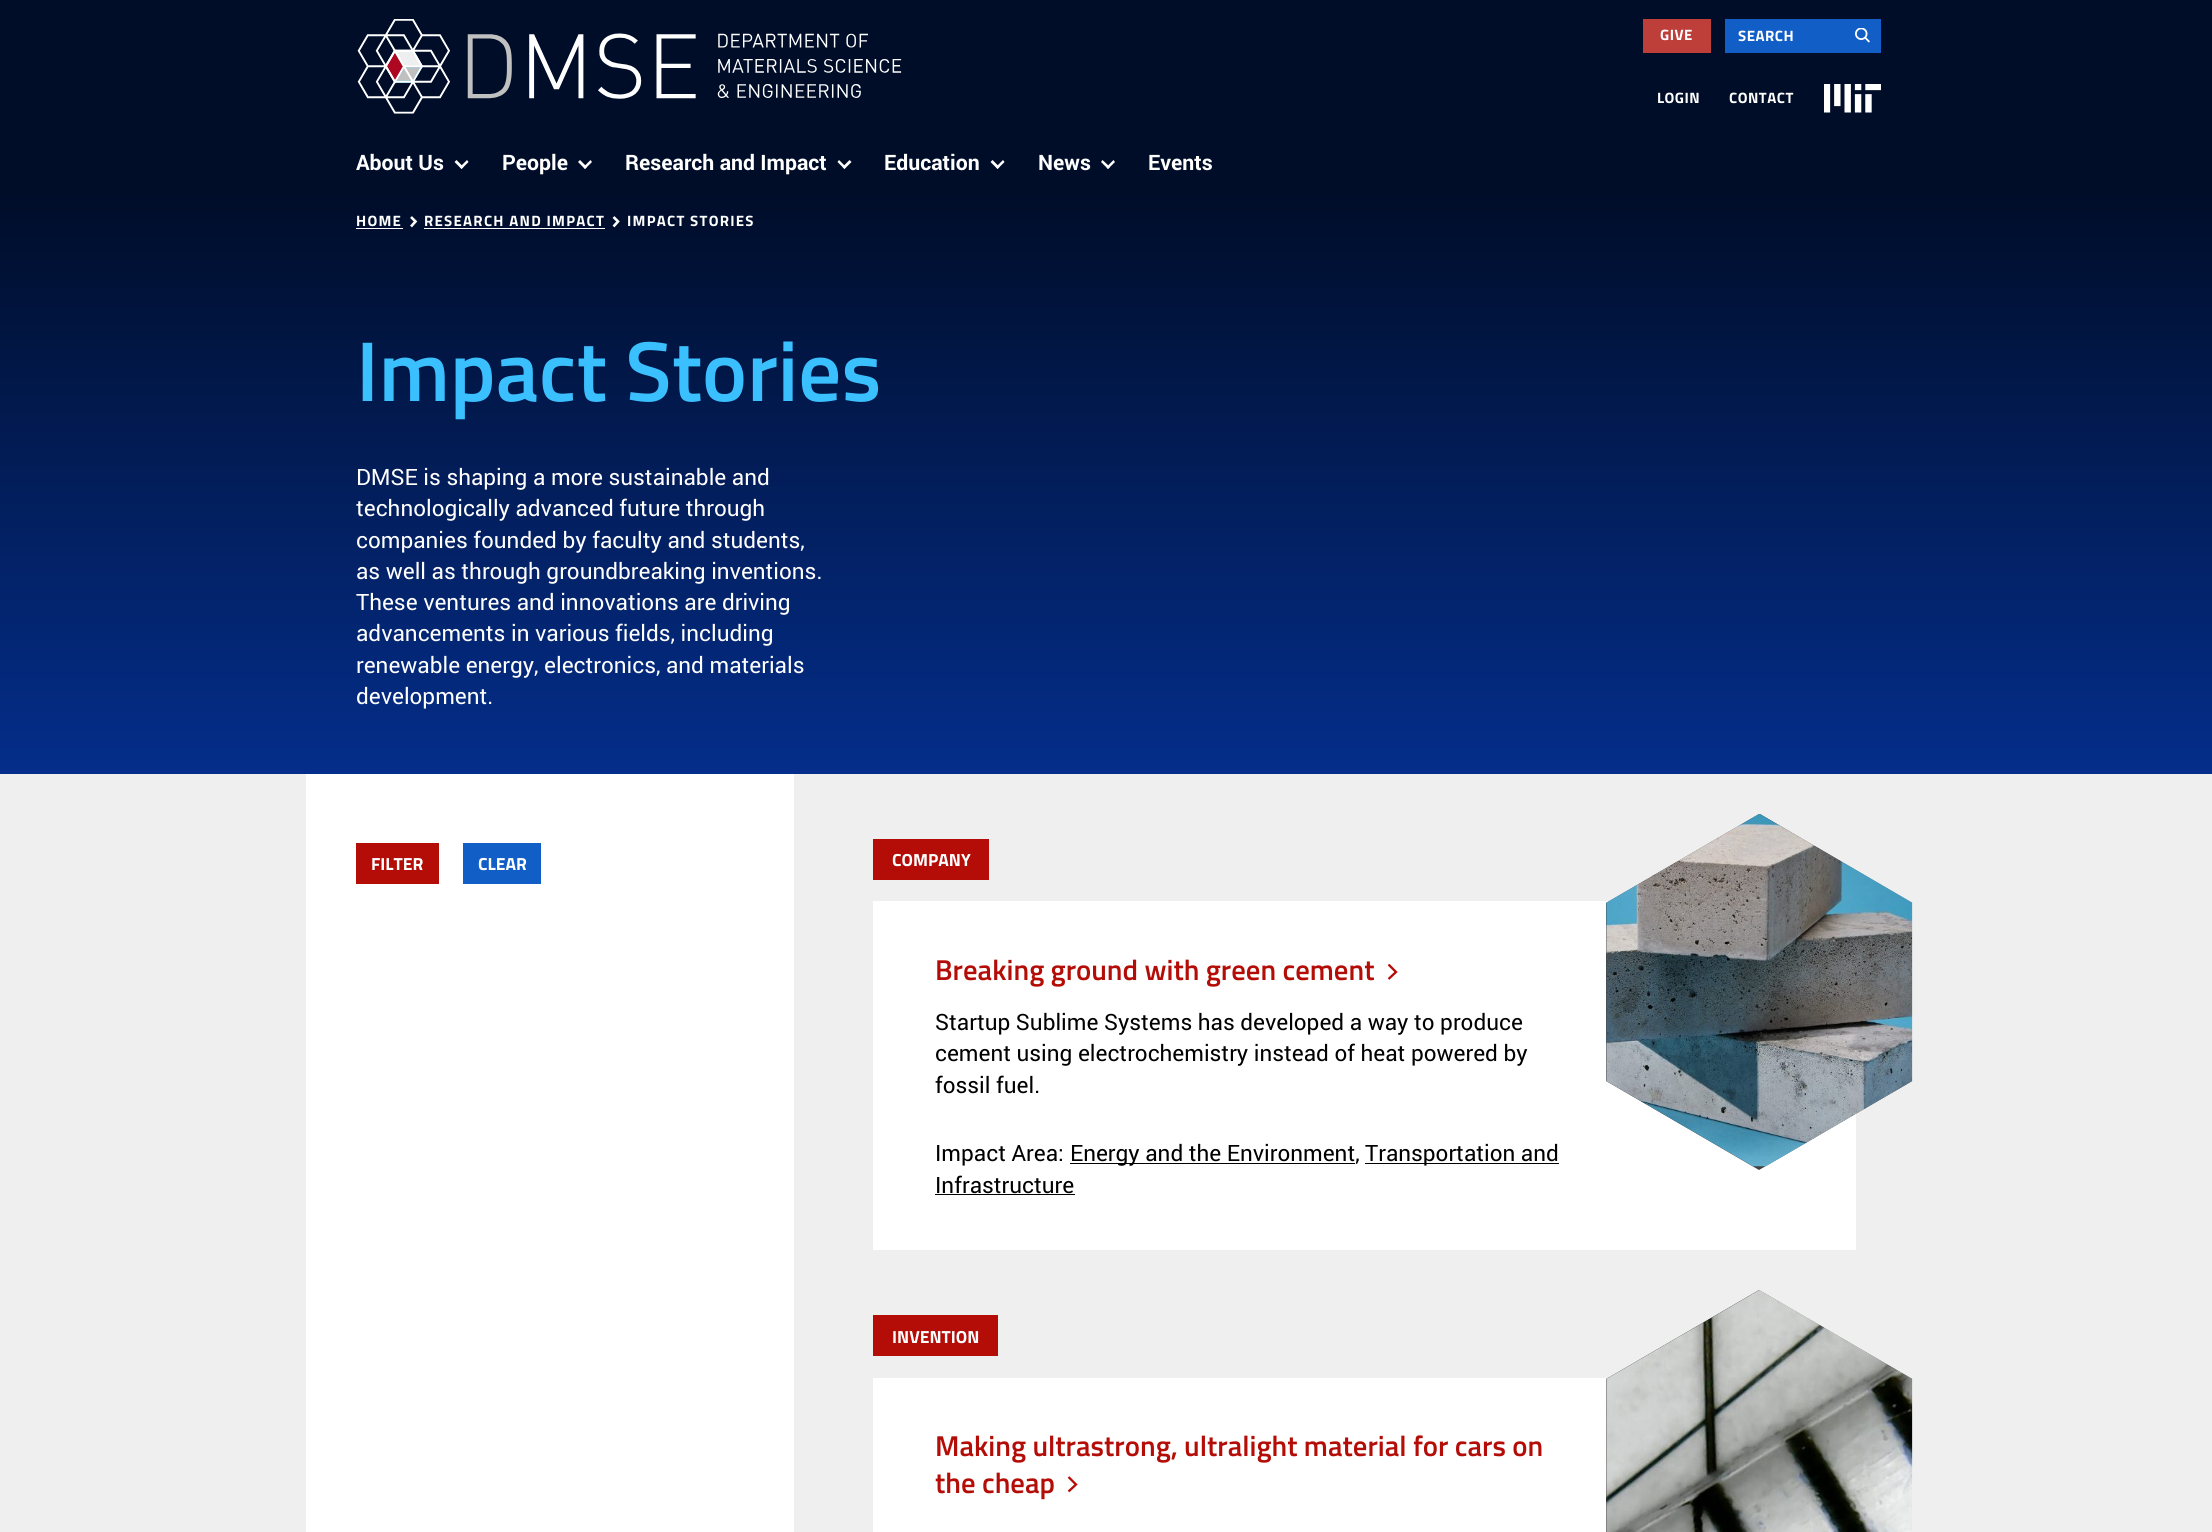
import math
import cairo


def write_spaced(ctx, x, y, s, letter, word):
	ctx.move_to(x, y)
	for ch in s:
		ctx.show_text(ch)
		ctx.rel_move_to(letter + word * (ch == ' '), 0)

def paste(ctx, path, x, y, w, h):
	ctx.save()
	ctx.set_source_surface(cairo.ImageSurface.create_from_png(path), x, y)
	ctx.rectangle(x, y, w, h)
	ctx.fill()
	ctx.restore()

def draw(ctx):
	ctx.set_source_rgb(1, 1, 1)
	ctx.paint()
	ctx.set_source_rgb(0, 0.051, 0.161)
	ctx.rectangle(0, 0, 2212, 194)
	ctx.fill()
	ctx.set_source_rgb(0.745, 0.243, 0.224)
	ctx.rectangle(1643, 19, 68, 34)
	ctx.fill()
	ctx.select_font_face('Titillium Web', cairo.FONT_SLANT_NORMAL, cairo.FONT_WEIGHT_BOLD)
	ctx.set_font_size(15)
	ctx.set_source_rgb(1, 1, 1)
	write_spaced(ctx, 1660, 40, 'GIVE', 0.5, 0)
	ctx.set_source_rgb(0.067, 0.369, 0.78)
	ctx.rectangle(1725, 19, 156, 34)
	ctx.fill()
	ctx.set_source_rgb(1, 1, 1)
	write_spaced(ctx, 1738, 41, 'SEARCH', 0.5, 0)
	paste(ctx, 'media/1.png', 1855, 28, 15, 15)
	write_spaced(ctx, 1657, 103, 'LOGIN', 0.5, 0)
	write_spaced(ctx, 1729, 103, 'CONTACT', 0.5, 0)
	paste(ctx, 'media/2.png', 1824, 84, 57, 29)
	paste(ctx, 'media/3.png', 357, 19, 545, 95)
	ctx.select_font_face('Roboto', cairo.FONT_SLANT_NORMAL, cairo.FONT_WEIGHT_BOLD)
	ctx.set_font_size(21.25)
	ctx.move_to(356, 170)
	ctx.show_text('About Us')
	ctx.new_path()
	ctx.move_to(467, 160)
	ctx.line_to(468.5, 162)
	ctx.line_to(461.5, 169)
	ctx.line_to(460, 167)
	ctx.close_path()
	ctx.fill()
	ctx.new_path()
	ctx.move_to(456.5, 160)
	ctx.line_to(463.5, 167)
	ctx.line_to(461.5, 169)
	ctx.line_to(454.5, 162)
	ctx.close_path()
	ctx.fill()
	ctx.move_to(502, 170)
	ctx.show_text('People')
	ctx.new_path()
	ctx.move_to(590.5, 160)
	ctx.line_to(592, 162)
	ctx.line_to(585, 169)
	ctx.line_to(583.5, 167)
	ctx.close_path()
	ctx.fill()
	ctx.new_path()
	ctx.move_to(580, 160)
	ctx.line_to(587, 167)
	ctx.line_to(585, 169)
	ctx.line_to(578, 162)
	ctx.close_path()
	ctx.fill()
	ctx.move_to(625, 170)
	ctx.show_text('Research and Impact')
	ctx.new_path()
	ctx.move_to(849.5, 160)
	ctx.line_to(851.5, 162)
	ctx.line_to(844.5, 169)
	ctx.line_to(842.5, 167)
	ctx.close_path()
	ctx.fill()
	ctx.new_path()
	ctx.move_to(839, 160)
	ctx.line_to(846, 167)
	ctx.line_to(844.5, 169)
	ctx.line_to(837.5, 162)
	ctx.close_path()
	ctx.fill()
	ctx.move_to(884, 170)
	ctx.show_text('Education')
	ctx.new_path()
	ctx.move_to(1003, 160)
	ctx.line_to(1004.5, 162)
	ctx.line_to(997.5, 169)
	ctx.line_to(996, 167)
	ctx.close_path()
	ctx.fill()
	ctx.new_path()
	ctx.move_to(992.5, 160)
	ctx.line_to(999.5, 167)
	ctx.line_to(997.5, 169)
	ctx.line_to(990.5, 162)
	ctx.close_path()
	ctx.fill()
	ctx.move_to(1038, 170)
	ctx.show_text('News')
	ctx.new_path()
	ctx.move_to(1113.5, 160)
	ctx.line_to(1115, 162)
	ctx.line_to(1108, 169)
	ctx.line_to(1106.5, 167)
	ctx.close_path()
	ctx.fill()
	ctx.new_path()
	ctx.move_to(1102.5, 160)
	ctx.line_to(1110, 167)
	ctx.line_to(1108, 169)
	ctx.line_to(1101, 162)
	ctx.close_path()
	ctx.fill()
	ctx.move_to(1148, 170)
	ctx.show_text('Events')
	gradient = cairo.LinearGradient(1106, 192, 1106, 774)
	gradient.add_color_stop_rgba(0, 0, 0.051, 0.161, 1)
	gradient.add_color_stop_rgba(1, 0.016, 0.18, 0.545, 1)
	ctx.set_source(gradient)
	ctx.rectangle(0, 194, 2212, 580)
	ctx.fill()
	ctx.select_font_face('Titillium Web', cairo.FONT_SLANT_NORMAL, cairo.FONT_WEIGHT_BOLD)
	ctx.set_font_size(15)
	ctx.set_source_rgb(1, 1, 1)
	write_spaced(ctx, 356, 226, 'HOME', 1.25, 0)
	ctx.rectangle(356, 228, 47, 1)
	ctx.fill()
	ctx.new_path()
	ctx.move_to(411, 226.5)
	ctx.line_to(415.5, 221.5)
	ctx.line_to(411, 217)
	ctx.set_line_width(2.6)
	ctx.stroke()
	write_spaced(ctx, 424, 226, 'RESEARCH AND IMPACT', 1.25, 0)
	ctx.rectangle(424, 228, 181, 1)
	ctx.fill()
	ctx.new_path()
	ctx.move_to(613.5, 226.5)
	ctx.line_to(618, 221.5)
	ctx.line_to(613.5, 217)
	ctx.stroke()
	write_spaced(ctx, 627, 226, 'IMPACT STORIES', 1.25, 0)
	ctx.select_font_face('Titillium Web SemiBold')
	ctx.set_font_size(85)
	ctx.set_source_rgb(0.231, 0.753, 1)
	ctx.move_to(356, 401)
	ctx.show_text('Impact Stories')
	ctx.select_font_face('Roboto')
	ctx.set_font_size(22.5)
	ctx.set_source_rgb(1, 1, 1)
	for x, y, s in [
		(356, 485, 'DMSE is shaping a more sustainable and'),
		(356, 516, 'technologically advanced future through'),
		(356, 548, 'companies founded by faculty and students,'),
		(356, 579, 'as well as through groundbreaking inventions.'),
		(356, 610, 'These ventures and innovations are driving'),
		(356, 641, 'advancements in various fields, including'),
		(356, 673, 'renewable energy, electronics, and materials'),
		(356, 704, 'development.'),
	]:
		ctx.move_to(x, y)
		ctx.show_text(s)
	ctx.set_source_rgb(0.937, 0.937, 0.937)
	ctx.rectangle(0, 774, 2212, 758)
	ctx.fill()
	ctx.set_source_rgb(1, 1, 1)
	ctx.rectangle(306, 774, 488, 758)
	ctx.fill()
	ctx.set_source_rgb(0.706, 0.051, 0.031)
	ctx.rectangle(356, 843, 83, 41)
	ctx.fill()
	ctx.select_font_face('Titillium Web', cairo.FONT_SLANT_NORMAL, cairo.FONT_WEIGHT_BOLD)
	ctx.set_font_size(17.5)
	ctx.set_source_rgb(1, 1, 1)
	ctx.move_to(371, 870)
	ctx.show_text('FILTER')
	ctx.set_source_rgb(0.067, 0.369, 0.78)
	ctx.rectangle(463, 843, 78, 41)
	ctx.fill()
	ctx.set_source_rgb(1, 1, 1)
	ctx.move_to(478, 870)
	ctx.show_text('CLEAR')
	ctx.set_source_rgb(0.706, 0.051, 0.031)
	ctx.rectangle(873, 839, 116, 41)
	ctx.fill()
	ctx.set_source_rgb(1, 1, 1)
	ctx.move_to(892, 866)
	ctx.show_text('COMPANY')
	ctx.rectangle(873, 901, 983, 349)
	ctx.fill()
	ctx.select_font_face('Titillium Web SemiBold')
	ctx.set_font_size(28.75)
	ctx.set_source_rgb(0.706, 0.051, 0.031)
	ctx.move_to(935, 980)
	ctx.show_text('Breaking ground with green cement')
	ctx.save()
	ctx.rectangle(1388, 964, 10, 16)
	ctx.clip()
	ctx.new_path()
	ctx.move_to(1388.5, 979)
	ctx.line_to(1396, 972)
	ctx.line_to(1388.5, 964.5)
	ctx.set_line_width(2.3)
	ctx.stroke()
	ctx.restore()
	ctx.select_font_face('Roboto')
	ctx.set_font_size(22.5)
	ctx.set_source_rgb(0, 0, 0)
	for x, y, s in [
		(935, 1030, 'Startup Sublime Systems has developed a way to produce'),
		(935, 1061, 'cement using electrochemistry instead of heat powered by'),
		(935, 1093, 'fossil fuel.'),
		(935, 1161, 'Impact Area:'),
	]:
		ctx.move_to(x, y)
		ctx.show_text(s)
	ctx.rectangle(1070, 1163, 285, 1)
	ctx.fill()
	ctx.move_to(1070, 1161)
	ctx.show_text('Energy and the Environment,')
	ctx.rectangle(1365, 1163, 194, 1)
	ctx.fill()
	ctx.move_to(1365, 1161)
	ctx.show_text('Transportation and')
	ctx.move_to(935, 1193)
	ctx.show_text('Infrastructure')
	ctx.rectangle(935, 1194, 140, 1)
	ctx.fill()
	ctx.set_source_rgb(0.259, 0.259, 0.259)
	ctx.new_path()
	ctx.move_to(1760, 814)
	ctx.line_to(1912, 903)
	ctx.line_to(1912, 1081)
	ctx.line_to(1759, 1170)
	ctx.line_to(1606, 1081)
	ctx.line_to(1606, 903)
	ctx.line_to(1759, 814)
	ctx.close_path()
	ctx.fill()
	paste(ctx, 'media/4.png', 1606, 814, 307, 353)
	ctx.set_source_rgb(0.706, 0.051, 0.031)
	ctx.rectangle(873, 1315, 125, 41)
	ctx.fill()
	ctx.select_font_face('Titillium Web', cairo.FONT_SLANT_NORMAL, cairo.FONT_WEIGHT_BOLD)
	ctx.set_font_size(17.5)
	ctx.set_source_rgb(1, 1, 1)
	ctx.move_to(892, 1343)
	ctx.show_text('INVENTION')
	ctx.rectangle(873, 1378, 735, 154)
	ctx.fill()
	ctx.select_font_face('Titillium Web SemiBold')
	ctx.set_font_size(28.75)
	ctx.set_source_rgb(0.706, 0.051, 0.031)
	ctx.move_to(935, 1456)
	ctx.show_text('Making ultrastrong, ultralight material for cars on')
	ctx.move_to(935, 1493)
	ctx.show_text('the cheap')
	ctx.new_path()
	ctx.move_to(1068.5, 1491.5)
	ctx.line_to(1076, 1484.5)
	ctx.line_to(1068.5, 1477)
	ctx.set_line_width(2.3)
	ctx.stroke()
	ctx.set_source_rgb(0.259, 0.259, 0.259)
	ctx.new_path()
	ctx.move_to(1759, 1290)
	ctx.line_to(1912, 1379)
	ctx.line_to(1912, 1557)
	ctx.line_to(1760, 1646)
	ctx.line_to(1759, 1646)
	ctx.line_to(1606, 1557)
	ctx.line_to(1606, 1379)
	ctx.close_path()
	ctx.fill()
	paste(ctx, 'media/5.png', 1606, 1290, 307, 242)


surface = cairo.ImageSurface(cairo.FORMAT_RGB24, 2212, 1532)
ctx = cairo.Context(surface)
options = cairo.FontOptions()
options.set_hint_metrics(cairo.HINT_METRICS_OFF)
options.set_hint_style(cairo.HINT_STYLE_NONE)
ctx.set_font_options(options)
ctx.set_miter_limit(4)
draw(ctx)
surface.write_to_png('image.png')
